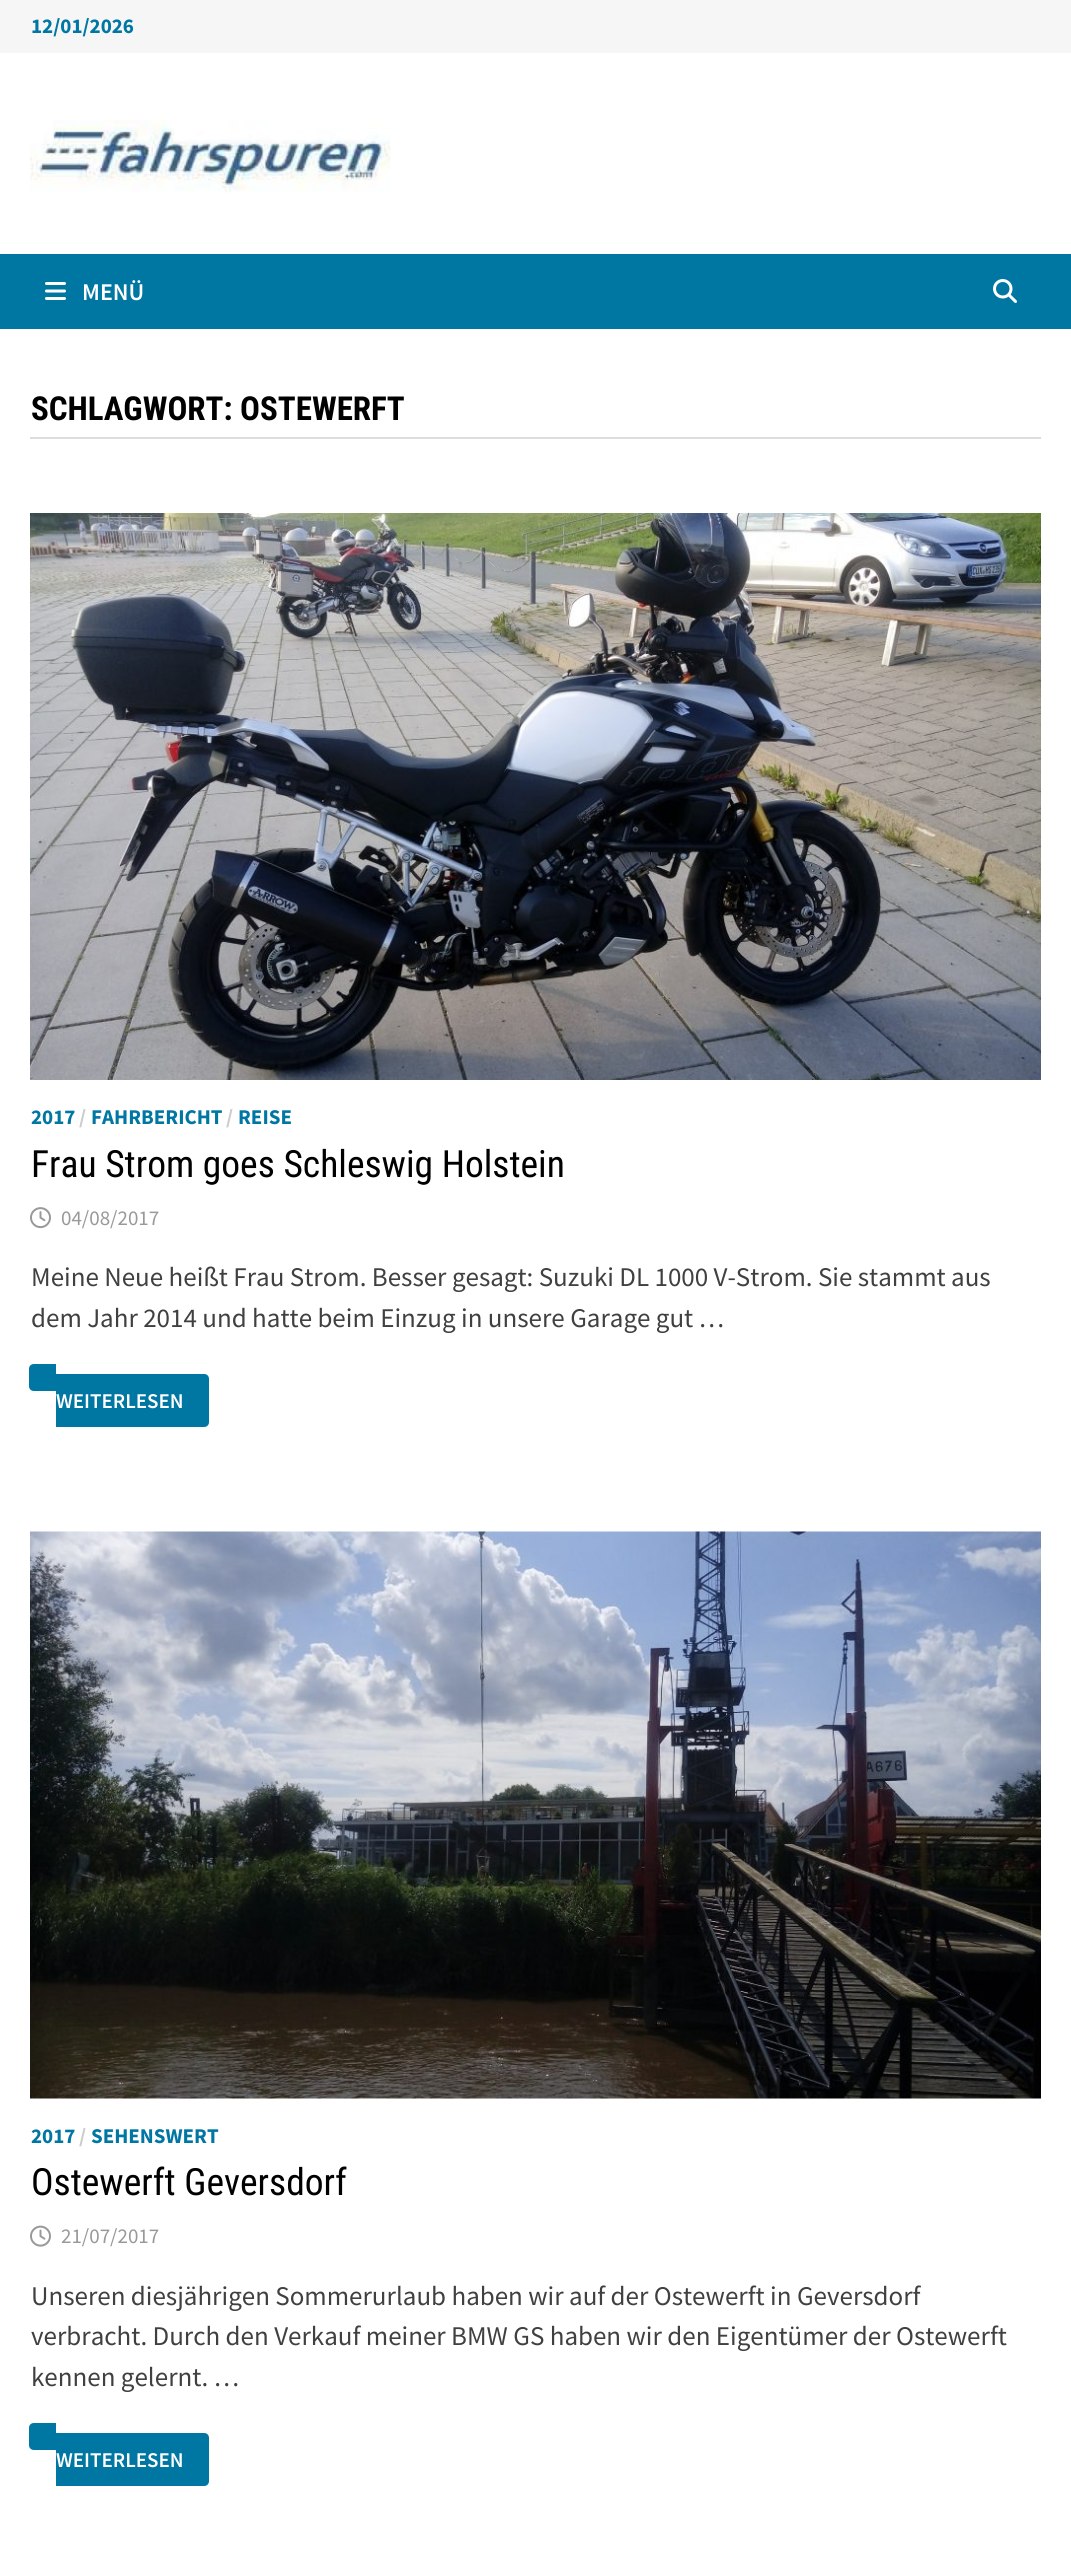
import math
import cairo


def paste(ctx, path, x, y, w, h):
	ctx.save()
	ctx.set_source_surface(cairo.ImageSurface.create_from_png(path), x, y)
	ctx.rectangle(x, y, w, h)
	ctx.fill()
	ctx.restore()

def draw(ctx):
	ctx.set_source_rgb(1, 1, 1)
	ctx.paint()
	ctx.set_source_rgb(0.961, 0.961, 0.961)
	ctx.rectangle(0, 0, 1071, 53)
	ctx.fill()
	ctx.select_font_face('Source Sans Pro', cairo.FONT_SLANT_NORMAL, cairo.FONT_WEIGHT_BOLD)
	ctx.set_font_size(21)
	ctx.set_source_rgb(0, 0.463, 0.639)
	ctx.move_to(31, 33)
	ctx.show_text('12/01/2026')
	paste(ctx, 'media/1.png', 30, 120, 361, 73)
	ctx.rectangle(0, 254, 1071, 75)
	ctx.fill()
	paste(ctx, 'media/2.png', 45, 282, 21, 18)
	ctx.select_font_face('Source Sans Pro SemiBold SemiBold')
	ctx.set_font_size(24)
	ctx.set_source_rgb(1, 1, 1)
	ctx.move_to(82, 300)
	ctx.show_text('MENÜ')
	paste(ctx, 'media/3.png', 993, 279, 24, 24)
	ctx.set_source_rgb(0.867, 0.867, 0.867)
	ctx.rectangle(30, 437, 1011, 2)
	ctx.fill()
	ctx.select_font_face('Roboto Condensed', cairo.FONT_SLANT_NORMAL, cairo.FONT_WEIGHT_BOLD)
	ctx.set_font_size(33)
	ctx.set_source_rgb(0, 0, 0)
	ctx.move_to(31, 420)
	ctx.show_text('SCHLAGWORT: OSTEWERFT')
	paste(ctx, 'media/4.png', 30, 513, 1011, 567)
	ctx.select_font_face('Source Sans Pro', cairo.FONT_SLANT_NORMAL, cairo.FONT_WEIGHT_BOLD)
	ctx.set_font_size(21)
	ctx.set_source_rgb(0, 0.463, 0.639)
	ctx.move_to(31, 1124)
	ctx.show_text('2017')
	ctx.set_source_rgb(0.8, 0.8, 0.8)
	ctx.move_to(79, 1124)
	ctx.show_text('/')
	ctx.set_source_rgb(0, 0.463, 0.639)
	ctx.move_to(91, 1124)
	ctx.show_text('FAHRBERICHT')
	ctx.set_source_rgb(0.8, 0.8, 0.8)
	ctx.move_to(226, 1124)
	ctx.show_text('/')
	ctx.set_source_rgb(0, 0.463, 0.639)
	ctx.move_to(238, 1124)
	ctx.show_text('REISE')
	ctx.select_font_face('Roboto Condensed')
	ctx.set_font_size(37.5)
	ctx.set_source_rgb(0, 0, 0)
	ctx.move_to(31, 1177)
	ctx.show_text('Frau Strom goes Schleswig Holstein')
	paste(ctx, 'media/5.png', 30, 1207, 21, 22)
	ctx.select_font_face('Source Sans Pro')
	ctx.set_font_size(21)
	ctx.set_source_rgb(0.6, 0.6, 0.6)
	ctx.move_to(61, 1225)
	ctx.show_text('04/08/2017')
	ctx.set_font_size(27)
	ctx.set_source_rgb(0.251, 0.251, 0.251)
	ctx.move_to(31, 1286)
	ctx.show_text('Meine Neue heißt Frau Strom. Besser gesagt: Suzuki DL 1000 V-Strom. Sie stammt aus')
	ctx.move_to(31, 1327)
	ctx.show_text('dem Jahr 2014 und hatte beim Einzug in unsere Garage gut …')
	ctx.set_source_rgb(0, 0.463, 0.639)
	ctx.new_path()
	ctx.move_to(56, 1374)
	ctx.line_to(204, 1374)
	ctx.curve_to(207, 1374, 209, 1376, 209, 1379)
	ctx.line_to(209, 1422)
	ctx.curve_to(209, 1425, 207, 1427, 204, 1427)
	ctx.line_to(56, 1427)
	ctx.close_path()
	ctx.fill()
	ctx.select_font_face('Source Sans Pro SemiBold SemiBold')
	ctx.set_font_size(21)
	ctx.set_source_rgb(1, 1, 1)
	ctx.move_to(56, 1408)
	ctx.show_text('WEITERLESEN')
	ctx.set_source_rgb(0, 0.463, 0.639)
	ctx.new_path()
	ctx.move_to(34, 1364)
	ctx.line_to(56, 1364)
	ctx.line_to(56, 1391)
	ctx.line_to(34, 1391)
	ctx.curve_to(31, 1391, 29, 1389, 29, 1386)
	ctx.line_to(29, 1369)
	ctx.curve_to(29, 1366, 31, 1364, 34, 1364)
	ctx.close_path()
	ctx.fill()
	paste(ctx, 'media/6.png', 30, 1531, 1011, 568)
	ctx.select_font_face('Source Sans Pro', cairo.FONT_SLANT_NORMAL, cairo.FONT_WEIGHT_BOLD)
	ctx.move_to(31, 2143)
	ctx.show_text('2017')
	ctx.set_source_rgb(0.8, 0.8, 0.8)
	ctx.move_to(79, 2143)
	ctx.show_text('/')
	ctx.set_source_rgb(0, 0.463, 0.639)
	ctx.move_to(91, 2143)
	ctx.show_text('SEHENSWERT')
	ctx.select_font_face('Roboto Condensed')
	ctx.set_font_size(37.5)
	ctx.set_source_rgb(0, 0, 0)
	ctx.move_to(31, 2195)
	ctx.show_text('Ostewerft Geversdorf')
	paste(ctx, 'media/7.png', 30, 2225, 21, 22)
	ctx.select_font_face('Source Sans Pro')
	ctx.set_font_size(21)
	ctx.set_source_rgb(0.6, 0.6, 0.6)
	ctx.move_to(61, 2243)
	ctx.show_text('21/07/2017')
	ctx.set_font_size(27)
	ctx.set_source_rgb(0.251, 0.251, 0.251)
	for x, y, s in [
		(31, 2305, 'Unseren diesjährigen Sommerurlaub haben wir auf der Ostewerft in Geversdorf'),
		(31, 2345, 'verbracht. Durch den Verkauf meiner BMW GS haben wir den Eigentümer der Ostewerft'),
		(31, 2386, 'kennen gelernt. …'),
	]:
		ctx.move_to(x, y)
		ctx.show_text(s)
	ctx.set_source_rgb(0, 0.463, 0.639)
	ctx.new_path()
	ctx.move_to(56, 2433)
	ctx.line_to(204, 2433)
	ctx.curve_to(207, 2433, 209, 2435, 209, 2438)
	ctx.line_to(209, 2481)
	ctx.curve_to(209, 2484, 207, 2486, 204, 2486)
	ctx.line_to(56, 2486)
	ctx.close_path()
	ctx.fill()
	ctx.select_font_face('Source Sans Pro SemiBold SemiBold')
	ctx.set_font_size(21)
	ctx.set_source_rgb(1, 1, 1)
	ctx.move_to(56, 2467)
	ctx.show_text('WEITERLESEN')
	ctx.set_source_rgb(0, 0.463, 0.639)
	ctx.new_path()
	ctx.move_to(34, 2423)
	ctx.line_to(56, 2423)
	ctx.line_to(56, 2450)
	ctx.line_to(34, 2450)
	ctx.curve_to(31, 2450, 29, 2448, 29, 2445)
	ctx.line_to(29, 2428)
	ctx.curve_to(29, 2425, 31, 2423, 34, 2423)
	ctx.close_path()
	ctx.fill()


surface = cairo.ImageSurface(cairo.FORMAT_RGB24, 1071, 2552)
ctx = cairo.Context(surface)
options = cairo.FontOptions()
options.set_hint_metrics(cairo.HINT_METRICS_OFF)
options.set_hint_style(cairo.HINT_STYLE_NONE)
ctx.set_font_options(options)
ctx.set_miter_limit(4)
draw(ctx)
surface.write_to_png('image.png')
